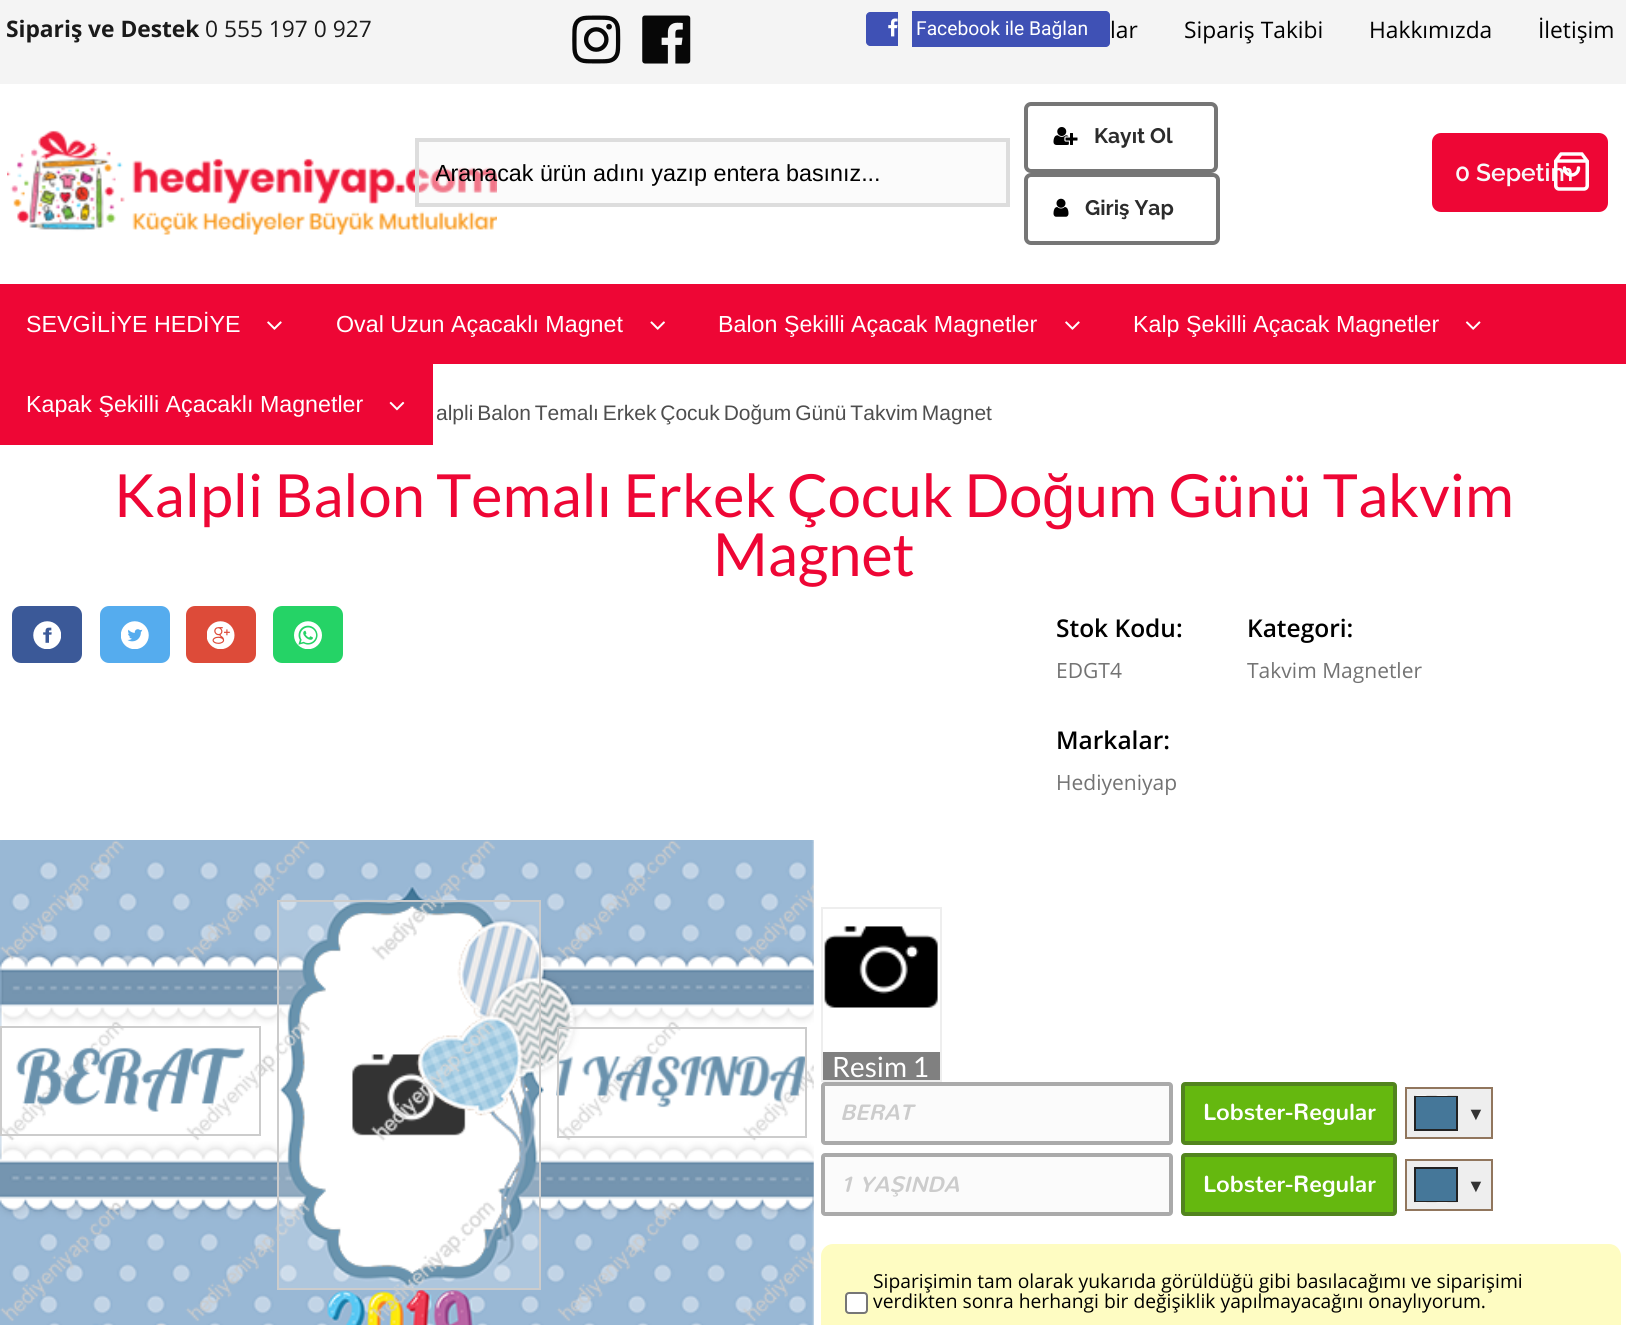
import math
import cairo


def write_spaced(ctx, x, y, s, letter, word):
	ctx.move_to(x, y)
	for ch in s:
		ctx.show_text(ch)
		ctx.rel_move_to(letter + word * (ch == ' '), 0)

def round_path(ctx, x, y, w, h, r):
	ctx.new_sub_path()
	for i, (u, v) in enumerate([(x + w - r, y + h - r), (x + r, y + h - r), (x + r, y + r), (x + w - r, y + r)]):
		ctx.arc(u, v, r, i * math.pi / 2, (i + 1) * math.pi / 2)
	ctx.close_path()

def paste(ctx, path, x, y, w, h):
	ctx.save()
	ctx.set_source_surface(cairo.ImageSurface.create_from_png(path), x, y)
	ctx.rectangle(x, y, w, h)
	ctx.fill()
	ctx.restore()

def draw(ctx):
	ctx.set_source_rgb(0.957, 0.957, 0.957)
	ctx.paint()
	ctx.select_font_face('Open Sans', cairo.FONT_SLANT_NORMAL, cairo.FONT_WEIGHT_BOLD)
	ctx.set_font_size(22.75)
	ctx.set_source_rgb(0.102, 0.102, 0.102)
	ctx.move_to(6, 37)
	ctx.show_text('Sipariş ve Destek')
	ctx.select_font_face('Open Sans')
	ctx.move_to(205, 37)
	ctx.show_text('0 555 197 0 927')
	paste(ctx, 'media/1.png', 572, 15, 49, 49)
	paste(ctx, 'media/2.png', 642, 15, 49, 49)
	ctx.set_source_rgb(0.247, 0.318, 0.71)
	ctx.new_path()
	ctx.move_to(870, 12)
	ctx.line_to(898, 12)
	ctx.line_to(898, 46)
	ctx.line_to(870, 46)
	ctx.curve_to(868, 46, 866, 44, 866, 42)
	ctx.line_to(866, 16)
	ctx.curve_to(866, 14, 868, 12, 870, 12)
	ctx.close_path()
	ctx.fill()
	ctx.new_path()
	ctx.move_to(912, 11)
	ctx.line_to(1106, 11)
	ctx.curve_to(1108, 11, 1110, 13, 1110, 15)
	ctx.line_to(1110, 43)
	ctx.curve_to(1110, 45, 1108, 47, 1106, 47)
	ctx.line_to(912, 47)
	ctx.close_path()
	ctx.fill()
	paste(ctx, 'media/3.png', 888, 18, 10, 19)
	ctx.select_font_face('Roboto')
	ctx.set_font_size(19.25)
	ctx.set_source_rgb(1, 1, 1)
	ctx.move_to(916, 35)
	ctx.show_text('Facebook ile Bağlan')
	ctx.select_font_face('Open Sans')
	ctx.set_font_size(22.75)
	ctx.set_source_rgb(0, 0, 0)
	for x, y, s in [
		(1110, 38, 'lar'),
		(1184, 38, 'Sipariş Takibi'),
		(1369, 38, 'Hakkımızda'),
		(1538, 38, 'İletişim'),
	]:
		ctx.move_to(x, y)
		ctx.show_text(s)
	ctx.set_source_rgb(1, 1, 1)
	ctx.rectangle(0, 84, 1626, 200)
	ctx.fill()
	paste(ctx, 'media/4.png', 7, 130, 490, 105)
	ctx.set_source_rgba(0.961, 0.961, 0.961, 0.42)
	ctx.rectangle(417, 140, 591, 65)
	ctx.fill_preserve()
	ctx.set_source_rgb(0.867, 0.867, 0.867)
	ctx.set_line_width(4)
	ctx.stroke()
	ctx.save()
	ctx.rectangle(436, 159, 553, 27)
	ctx.clip()
	ctx.select_font_face('Liberation Sans')
	ctx.set_font_size(23.3)
	ctx.set_source_rgb(0, 0, 0)
	ctx.move_to(435, 181)
	ctx.show_text('Aranacak ürün adını yazıp entera basınız...')
	ctx.restore()
	round_path(ctx, 1026, 104, 190, 67, 5)
	ctx.set_source_rgb(0.463, 0.463, 0.463)
	ctx.stroke()
	paste(ctx, 'media/5.png', 1053, 127, 25, 18)
	ctx.select_font_face('Raleway', cairo.FONT_SLANT_NORMAL, cairo.FONT_WEIGHT_BOLD)
	ctx.set_font_size(21)
	ctx.set_source_rgb(0.173, 0.173, 0.173)
	ctx.move_to(1094, 143)
	ctx.show_text('Kayıt Ol')
	round_path(ctx, 1026, 175, 192, 68, 5)
	ctx.set_source_rgb(0.463, 0.463, 0.463)
	ctx.stroke()
	paste(ctx, 'media/6.png', 1053, 198, 16, 19)
	ctx.set_source_rgb(0.173, 0.173, 0.173)
	ctx.move_to(1085, 215)
	ctx.show_text('Giriş Yap')
	ctx.set_source_rgb(0.933, 0.027, 0.208)
	round_path(ctx, 1434, 135, 172, 75, 7)
	ctx.fill_preserve()
	ctx.stroke()
	ctx.select_font_face('Raleway SemiBold')
	ctx.set_font_size(24.5)
	ctx.set_source_rgb(0.969, 0.969, 0.969)
	ctx.move_to(1455, 181)
	ctx.show_text('0 Sepetim')
	paste(ctx, 'media/7.png', 1554, 152, 35, 39)
	ctx.set_source_rgb(0.933, 0.027, 0.208)
	ctx.rectangle(0, 284, 1626, 80)
	ctx.fill()
	ctx.select_font_face('Liberation Sans')
	ctx.set_font_size(23.25)
	ctx.set_source_rgb(1, 1, 1)
	ctx.move_to(26, 332)
	ctx.show_text('SEVGİLİYE HEDİYE')
	paste(ctx, 'media/8.png', 267, 321, 15, 9)
	ctx.move_to(336, 332)
	ctx.show_text('Oval Uzun Açacaklı Magnet')
	paste(ctx, 'media/9.png', 650, 321, 15, 9)
	ctx.move_to(718, 332)
	ctx.show_text('Balon Şekilli Açacak Magnetler')
	paste(ctx, 'media/8.png', 1065, 321, 15, 9)
	ctx.move_to(1133, 332)
	ctx.show_text('Kalp Şekilli Açacak Magnetler')
	paste(ctx, 'media/10.png', 1465, 321, 16, 9)
	ctx.rectangle(0, 364, 1626, 961)
	ctx.fill()
	ctx.set_source_rgb(0.933, 0.027, 0.208)
	ctx.rectangle(0, 364, 433, 81)
	ctx.fill()
	ctx.set_source_rgb(1, 1, 1)
	ctx.move_to(26, 412)
	ctx.show_text('Kapak Şekilli Açacaklı Magnetler')
	paste(ctx, 'media/11.png', 389, 401, 16, 10)
	ctx.set_font_size(21)
	ctx.set_source_rgb(0.306, 0.306, 0.306)
	write_spaced(ctx, 436, 420, 'alpli Balon Temalı Erkek Çocuk Doğum Günü Takvim Magnet', 0, -2)
	ctx.select_font_face('Lato')
	ctx.set_font_size(59.5)
	ctx.set_source_rgb(0.933, 0.027, 0.208)
	ctx.move_to(114, 517)
	ctx.show_text('Kalpli Balon Temalı Erkek Çocuk Do')
	ctx.select_font_face('Liberation Sans')
	ctx.move_to(1042, 517)
	ctx.show_text('ğ')
	ctx.select_font_face('Lato')
	ctx.move_to(1075, 517)
	ctx.show_text('um Günü Takvim')
	ctx.move_to(713, 576)
	ctx.show_text('Magnet')
	ctx.set_source_rgb(0.231, 0.349, 0.596)
	round_path(ctx, 12, 606, 70, 57, 9)
	ctx.fill()
	paste(ctx, 'media/12.png', 33, 621, 28, 28)
	ctx.set_source_rgb(0.333, 0.675, 0.933)
	round_path(ctx, 100, 606, 70, 57, 9)
	ctx.fill()
	paste(ctx, 'media/13.png', 121, 621, 28, 28)
	ctx.set_source_rgb(0.867, 0.294, 0.224)
	round_path(ctx, 186, 606, 70, 57, 9)
	ctx.fill()
	paste(ctx, 'media/14.png', 207, 621, 28, 28)
	ctx.set_source_rgb(0.145, 0.827, 0.4)
	round_path(ctx, 273, 606, 70, 57, 9)
	ctx.fill()
	paste(ctx, 'media/15.png', 294, 621, 28, 28)
	ctx.select_font_face('Open Sans SemiBold')
	ctx.set_font_size(24.5)
	ctx.set_source_rgb(0, 0, 0)
	ctx.move_to(1056, 637)
	ctx.show_text('Stok Kodu:')
	ctx.select_font_face('Open Sans')
	ctx.set_font_size(21)
	ctx.set_source_rgb(0.451, 0.451, 0.451)
	ctx.move_to(1056, 678)
	ctx.show_text('EDGT4')
	ctx.select_font_face('Open Sans SemiBold')
	ctx.set_font_size(24.5)
	ctx.set_source_rgb(0, 0, 0)
	ctx.move_to(1247, 637)
	ctx.show_text('Kategori:')
	ctx.select_font_face('Open Sans')
	ctx.set_font_size(21)
	ctx.set_source_rgb(0.451, 0.451, 0.451)
	ctx.move_to(1247, 678)
	ctx.show_text('Takvim Magnetler')
	ctx.select_font_face('Open Sans SemiBold')
	ctx.set_font_size(24.5)
	ctx.set_source_rgb(0, 0, 0)
	ctx.move_to(1056, 749)
	ctx.show_text('Markalar:')
	ctx.select_font_face('Open Sans')
	ctx.set_font_size(21)
	ctx.set_source_rgb(0.451, 0.451, 0.451)
	ctx.move_to(1056, 790)
	ctx.show_text('Hediyeniyap')
	paste(ctx, 'media/18.png', 352, 1054, 114, 82)
	paste(ctx, 'media/16.png', 0, 840, 814, 485)
	paste(ctx, 'media/17.png', 16, 1047, 229, 65)
	ctx.set_source_rgba(1, 1, 1, 0.2)
	ctx.rectangle(1, 1027, 259, 108)
	ctx.fill_preserve()
	ctx.set_source_rgb(0.8, 0.8, 0.8)
	ctx.set_line_width(2)
	ctx.stroke()
	ctx.set_source_rgba(1, 1, 1, 0.2)
	ctx.rectangle(278, 901, 262, 388)
	ctx.fill_preserve()
	ctx.set_source_rgb(0.8, 0.8, 0.8)
	ctx.stroke()
	paste(ctx, 'media/19.png', 556, 1056, 249, 52)
	ctx.set_source_rgba(1, 1, 1, 0.2)
	ctx.rectangle(558, 1028, 248, 109)
	ctx.fill_preserve()
	ctx.set_source_rgb(0.8, 0.8, 0.8)
	ctx.stroke()
	ctx.rectangle(822, 908, 119, 173)
	ctx.set_source_rgb(0.933, 0.933, 0.933)
	ctx.stroke()
	paste(ctx, 'media/20.png', 824, 926, 114, 82)
	ctx.set_source_rgb(0.502, 0.502, 0.502)
	ctx.rectangle(823, 1052, 117, 28)
	ctx.fill()
	ctx.select_font_face('Lato')
	ctx.set_font_size(28)
	ctx.set_source_rgb(1, 1, 1)
	ctx.move_to(832, 1077)
	ctx.show_text('Resim 1')
	ctx.set_source_rgb(0.984, 0.984, 0.984)
	round_path(ctx, 823, 1084, 348, 59, 2)
	ctx.fill_preserve()
	ctx.set_source_rgb(0.667, 0.667, 0.667)
	ctx.set_line_width(4)
	ctx.stroke()
	ctx.select_font_face('Nunito', cairo.FONT_SLANT_ITALIC, cairo.FONT_WEIGHT_BOLD)
	ctx.set_font_size(22)
	ctx.set_source_rgb(0.8, 0.8, 0.8)
	ctx.move_to(840, 1120)
	ctx.show_text('BERAT')
	ctx.set_source_rgb(0.396, 0.722, 0.059)
	round_path(ctx, 1183, 1084, 212, 59, 2)
	ctx.fill_preserve()
	ctx.set_source_rgb(0.322, 0.518, 0.118)
	ctx.stroke()
	ctx.select_font_face('Nunito', cairo.FONT_SLANT_NORMAL, cairo.FONT_WEIGHT_BOLD)
	ctx.set_font_size(23.3)
	ctx.set_source_rgb(1, 1, 1)
	ctx.move_to(1203, 1120)
	ctx.show_text('Lobster-Regular')
	ctx.set_source_rgb(0.933, 0.933, 0.933)
	ctx.rectangle(1406, 1088, 86, 50)
	ctx.fill_preserve()
	ctx.set_source_rgb(0.569, 0.463, 0.365)
	ctx.set_line_width(2)
	ctx.stroke()
	paste(ctx, 'media/21.png', 1414, 1095, 44, 1)
	ctx.rectangle(1415, 1097, 42, 33)
	ctx.set_source_rgb(0.133, 0.133, 0.133)
	ctx.stroke()
	ctx.set_source_rgb(0.271, 0.467, 0.6)
	ctx.rectangle(1416, 1097, 40, 32)
	ctx.fill()
	ctx.select_font_face('Liberation Sans')
	ctx.set_font_size(18)
	ctx.set_source_rgb(0.2, 0.2, 0.2)
	ctx.move_to(1467, 1120)
	ctx.show_text('▼')
	ctx.set_source_rgb(0.984, 0.984, 0.984)
	round_path(ctx, 823, 1155, 348, 59, 2)
	ctx.fill_preserve()
	ctx.set_source_rgb(0.667, 0.667, 0.667)
	ctx.set_line_width(4)
	ctx.stroke()
	ctx.select_font_face('Nunito', cairo.FONT_SLANT_ITALIC, cairo.FONT_WEIGHT_BOLD)
	ctx.set_font_size(22)
	ctx.set_source_rgb(0.8, 0.8, 0.8)
	ctx.move_to(840, 1192)
	ctx.show_text('1 YAŞINDA')
	ctx.set_source_rgb(0.396, 0.722, 0.059)
	round_path(ctx, 1183, 1155, 212, 59, 2)
	ctx.fill_preserve()
	ctx.set_source_rgb(0.322, 0.518, 0.118)
	ctx.stroke()
	ctx.select_font_face('Nunito', cairo.FONT_SLANT_NORMAL, cairo.FONT_WEIGHT_BOLD)
	ctx.set_font_size(23.3)
	ctx.set_source_rgb(1, 1, 1)
	ctx.move_to(1203, 1192)
	ctx.show_text('Lobster-Regular')
	ctx.set_source_rgb(0.933, 0.933, 0.933)
	ctx.rectangle(1406, 1160, 86, 50)
	ctx.fill_preserve()
	ctx.set_source_rgb(0.569, 0.463, 0.365)
	ctx.set_line_width(2)
	ctx.stroke()
	paste(ctx, 'media/22.png', 1414, 1202, 44, 1)
	ctx.rectangle(1415, 1168, 42, 33)
	ctx.set_source_rgb(0.133, 0.133, 0.133)
	ctx.stroke()
	ctx.set_source_rgb(0.271, 0.467, 0.6)
	ctx.rectangle(1416, 1169, 40, 32)
	ctx.fill()
	ctx.select_font_face('Liberation Sans')
	ctx.set_font_size(18)
	ctx.set_source_rgb(0.2, 0.2, 0.2)
	ctx.move_to(1467, 1192)
	ctx.show_text('▼')
	ctx.set_source_rgb(0.996, 0.988, 0.761)
	round_path(ctx, 821, 1244, 800, 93, 12)
	ctx.fill()
	ctx.set_source_rgb(1, 1, 1)
	round_path(ctx, 846, 1293, 21, 20, 3)
	ctx.fill_preserve()
	ctx.set_source_rgb(0.463, 0.463, 0.463)
	ctx.stroke()
	ctx.select_font_face('Open Sans')
	ctx.set_font_size(19.25)
	ctx.set_source_rgb(0, 0, 0)
	ctx.move_to(873, 1288)
	ctx.show_text('Siparişimin tam olarak yukarıda görüldüğü gibi basılacağımı ve siparişimi')
	ctx.move_to(873, 1308)
	ctx.show_text('verdikten sonra herhangi bir değişiklik yapılmayacağını onaylıyorum.')


surface = cairo.ImageSurface(cairo.FORMAT_RGB24, 1626, 1325)
ctx = cairo.Context(surface)
options = cairo.FontOptions()
options.set_hint_metrics(cairo.HINT_METRICS_OFF)
options.set_hint_style(cairo.HINT_STYLE_NONE)
ctx.set_font_options(options)
ctx.set_miter_limit(4)
draw(ctx)
surface.write_to_png('image.png')
